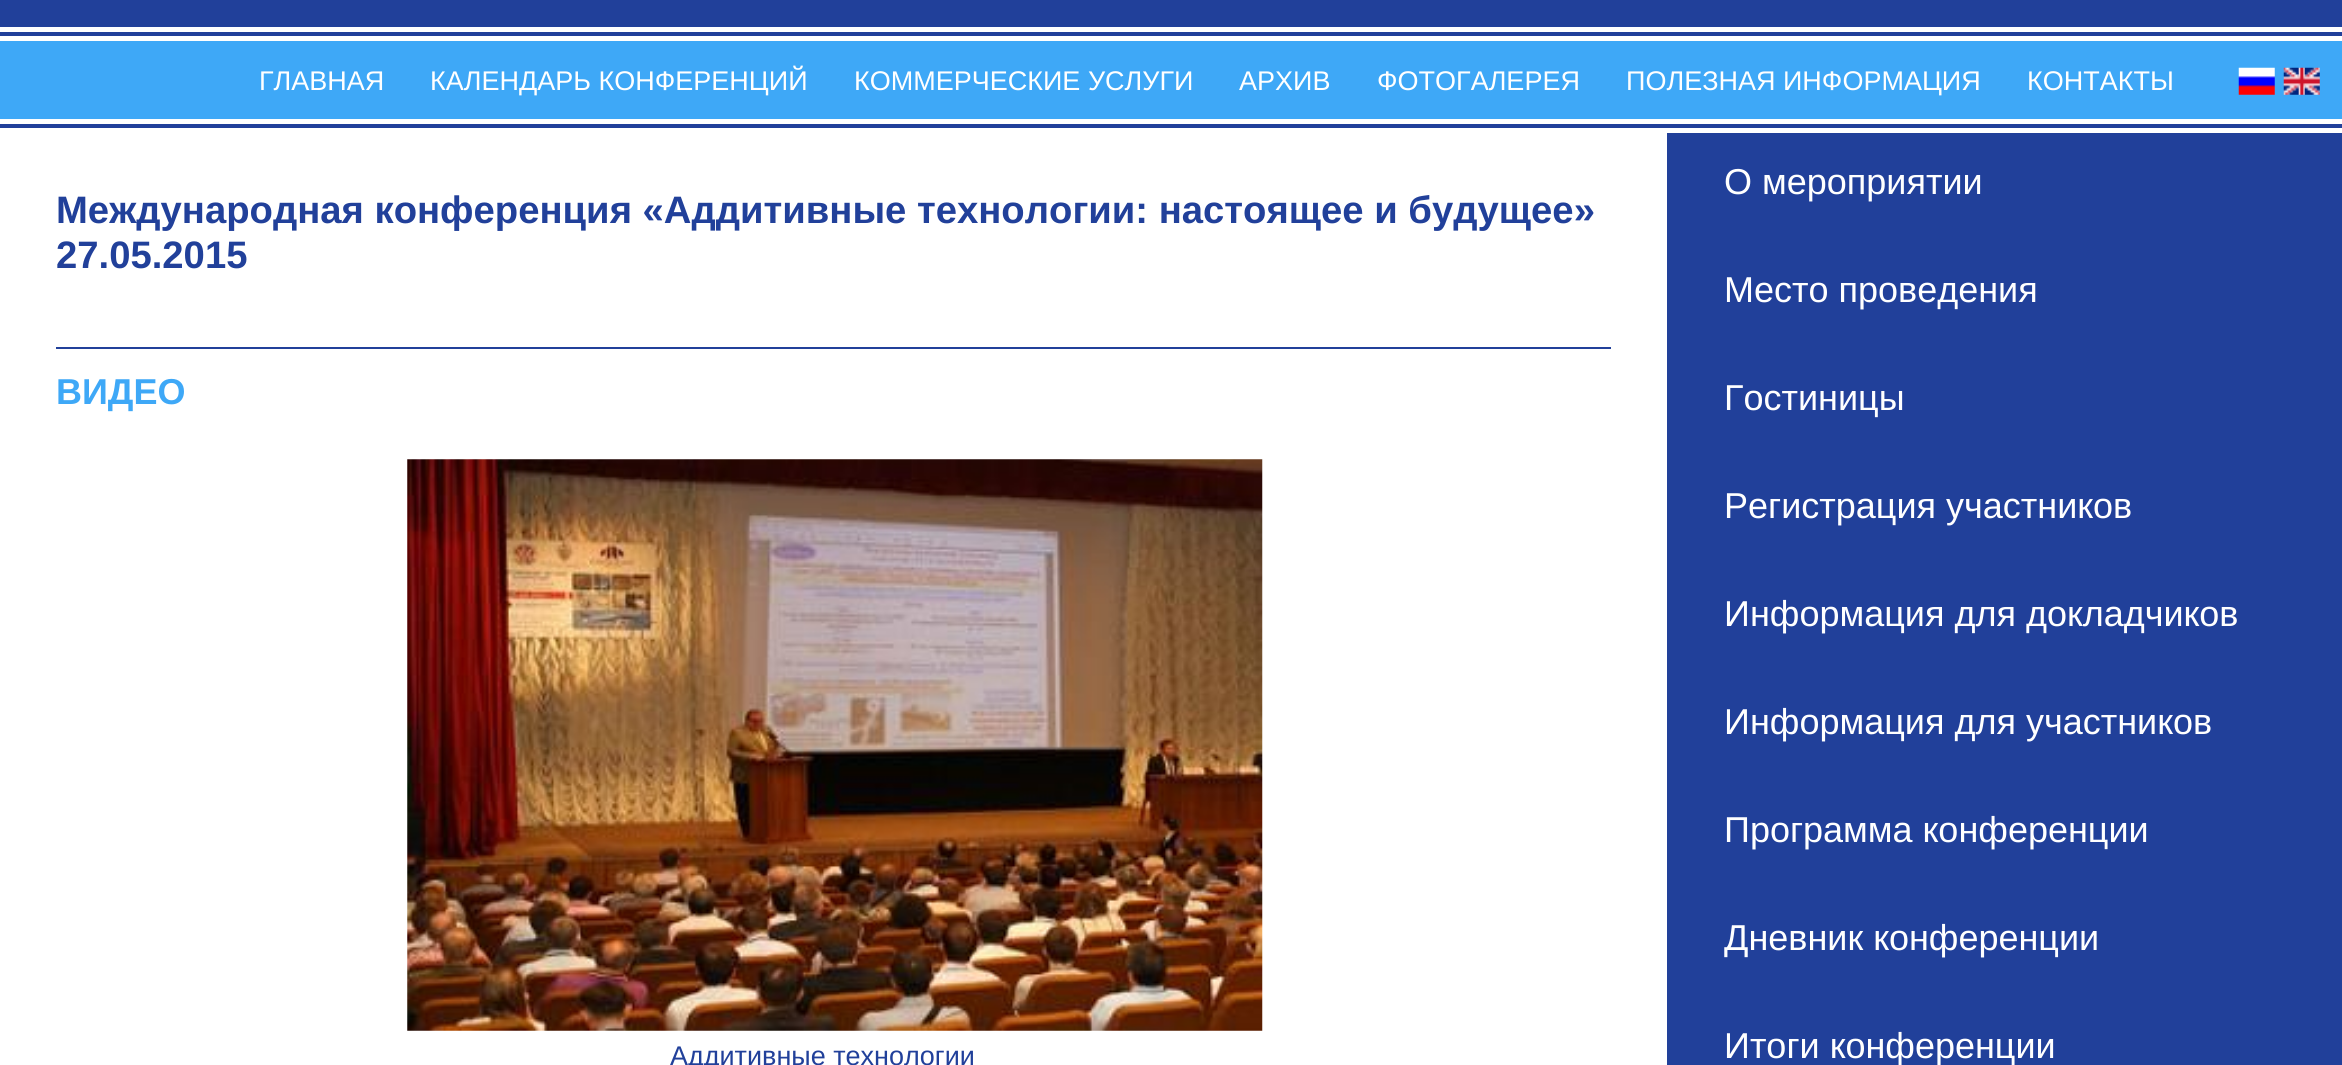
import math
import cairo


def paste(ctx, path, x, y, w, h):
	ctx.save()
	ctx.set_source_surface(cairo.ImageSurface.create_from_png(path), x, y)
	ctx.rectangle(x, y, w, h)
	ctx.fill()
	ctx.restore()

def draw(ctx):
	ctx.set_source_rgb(0.129, 0.251, 0.604)
	ctx.paint()
	ctx.set_source_rgb(0.243, 0.659, 0.965)
	ctx.rectangle(0, 41, 2342, 78)
	ctx.fill()
	ctx.set_source_rgb(1, 1, 1)
	ctx.rectangle(0, 27, 2342, 5)
	ctx.rectangle(0, 36, 2342, 5)
	ctx.fill()
	ctx.select_font_face('Liberation Sans')
	ctx.set_font_size(27)
	for x, y, s in [
		(259, 90, 'ГЛАВНАЯ'),
		(430, 90, 'КАЛЕНДАРЬ КОНФЕРЕНЦИЙ'),
		(854, 90, 'КОММЕРЧЕСКИЕ УСЛУГИ'),
		(1239, 90, 'АРХИВ'),
		(1377, 90, 'ФОТОГАЛЕРЕЯ'),
		(1626, 90, 'ПОЛЕЗНАЯ ИНФОРМАЦИЯ'),
		(2027, 90, 'КОНТАКТЫ'),
	]:
		ctx.move_to(x, y)
		ctx.show_text(s)
	paste(ctx, 'media/1.png', 2238, 67, 37, 28)
	paste(ctx, 'media/2.png', 2283, 67, 37, 28)
	ctx.rectangle(0, 119, 2342, 5)
	ctx.rectangle(0, 128, 2342, 5)
	ctx.rectangle(0, 133, 1667, 932)
	ctx.fill()
	ctx.set_source_rgb(0.129, 0.251, 0.604)
	ctx.rectangle(56, 347, 1555, 2)
	ctx.fill()
	ctx.select_font_face('Liberation Sans', cairo.FONT_SLANT_NORMAL, cairo.FONT_WEIGHT_BOLD)
	ctx.set_font_size(38.25)
	ctx.move_to(56, 223)
	ctx.show_text('Международная конференция «Аддитивные технологии: настоящее и будущее»')
	ctx.move_to(56, 268)
	ctx.show_text('27.05.2015')
	ctx.set_font_size(36)
	ctx.set_source_rgb(0.243, 0.659, 0.965)
	ctx.move_to(56, 404)
	ctx.show_text('ВИДЕО')
	paste(ctx, 'media/3.png', 407, 459, 856, 572)
	ctx.select_font_face('Liberation Sans')
	ctx.set_font_size(27)
	ctx.set_source_rgb(0.129, 0.251, 0.604)
	ctx.move_to(670, 1065)
	ctx.show_text('Аддитивные технологии')
	ctx.set_font_size(36)
	ctx.set_source_rgb(1, 1, 1)
	for x, y, s in [
		(1724, 194, 'О мероприятии'),
		(1724, 302, 'Место проведения'),
		(1724, 410, 'Гостиницы'),
		(1724, 518, 'Регистрация участников'),
		(1724, 626, 'Информация для докладчиков'),
		(1724, 734, 'Информация для участников'),
		(1724, 842, 'Программа конференции'),
		(1724, 950, 'Дневник конференции'),
		(1724, 1058, 'Итоги конференции'),
	]:
		ctx.move_to(x, y)
		ctx.show_text(s)


surface = cairo.ImageSurface(cairo.FORMAT_RGB24, 2342, 1065)
ctx = cairo.Context(surface)
options = cairo.FontOptions()
options.set_hint_metrics(cairo.HINT_METRICS_OFF)
options.set_hint_style(cairo.HINT_STYLE_NONE)
ctx.set_font_options(options)
ctx.set_miter_limit(4)
draw(ctx)
surface.write_to_png('image.png')
